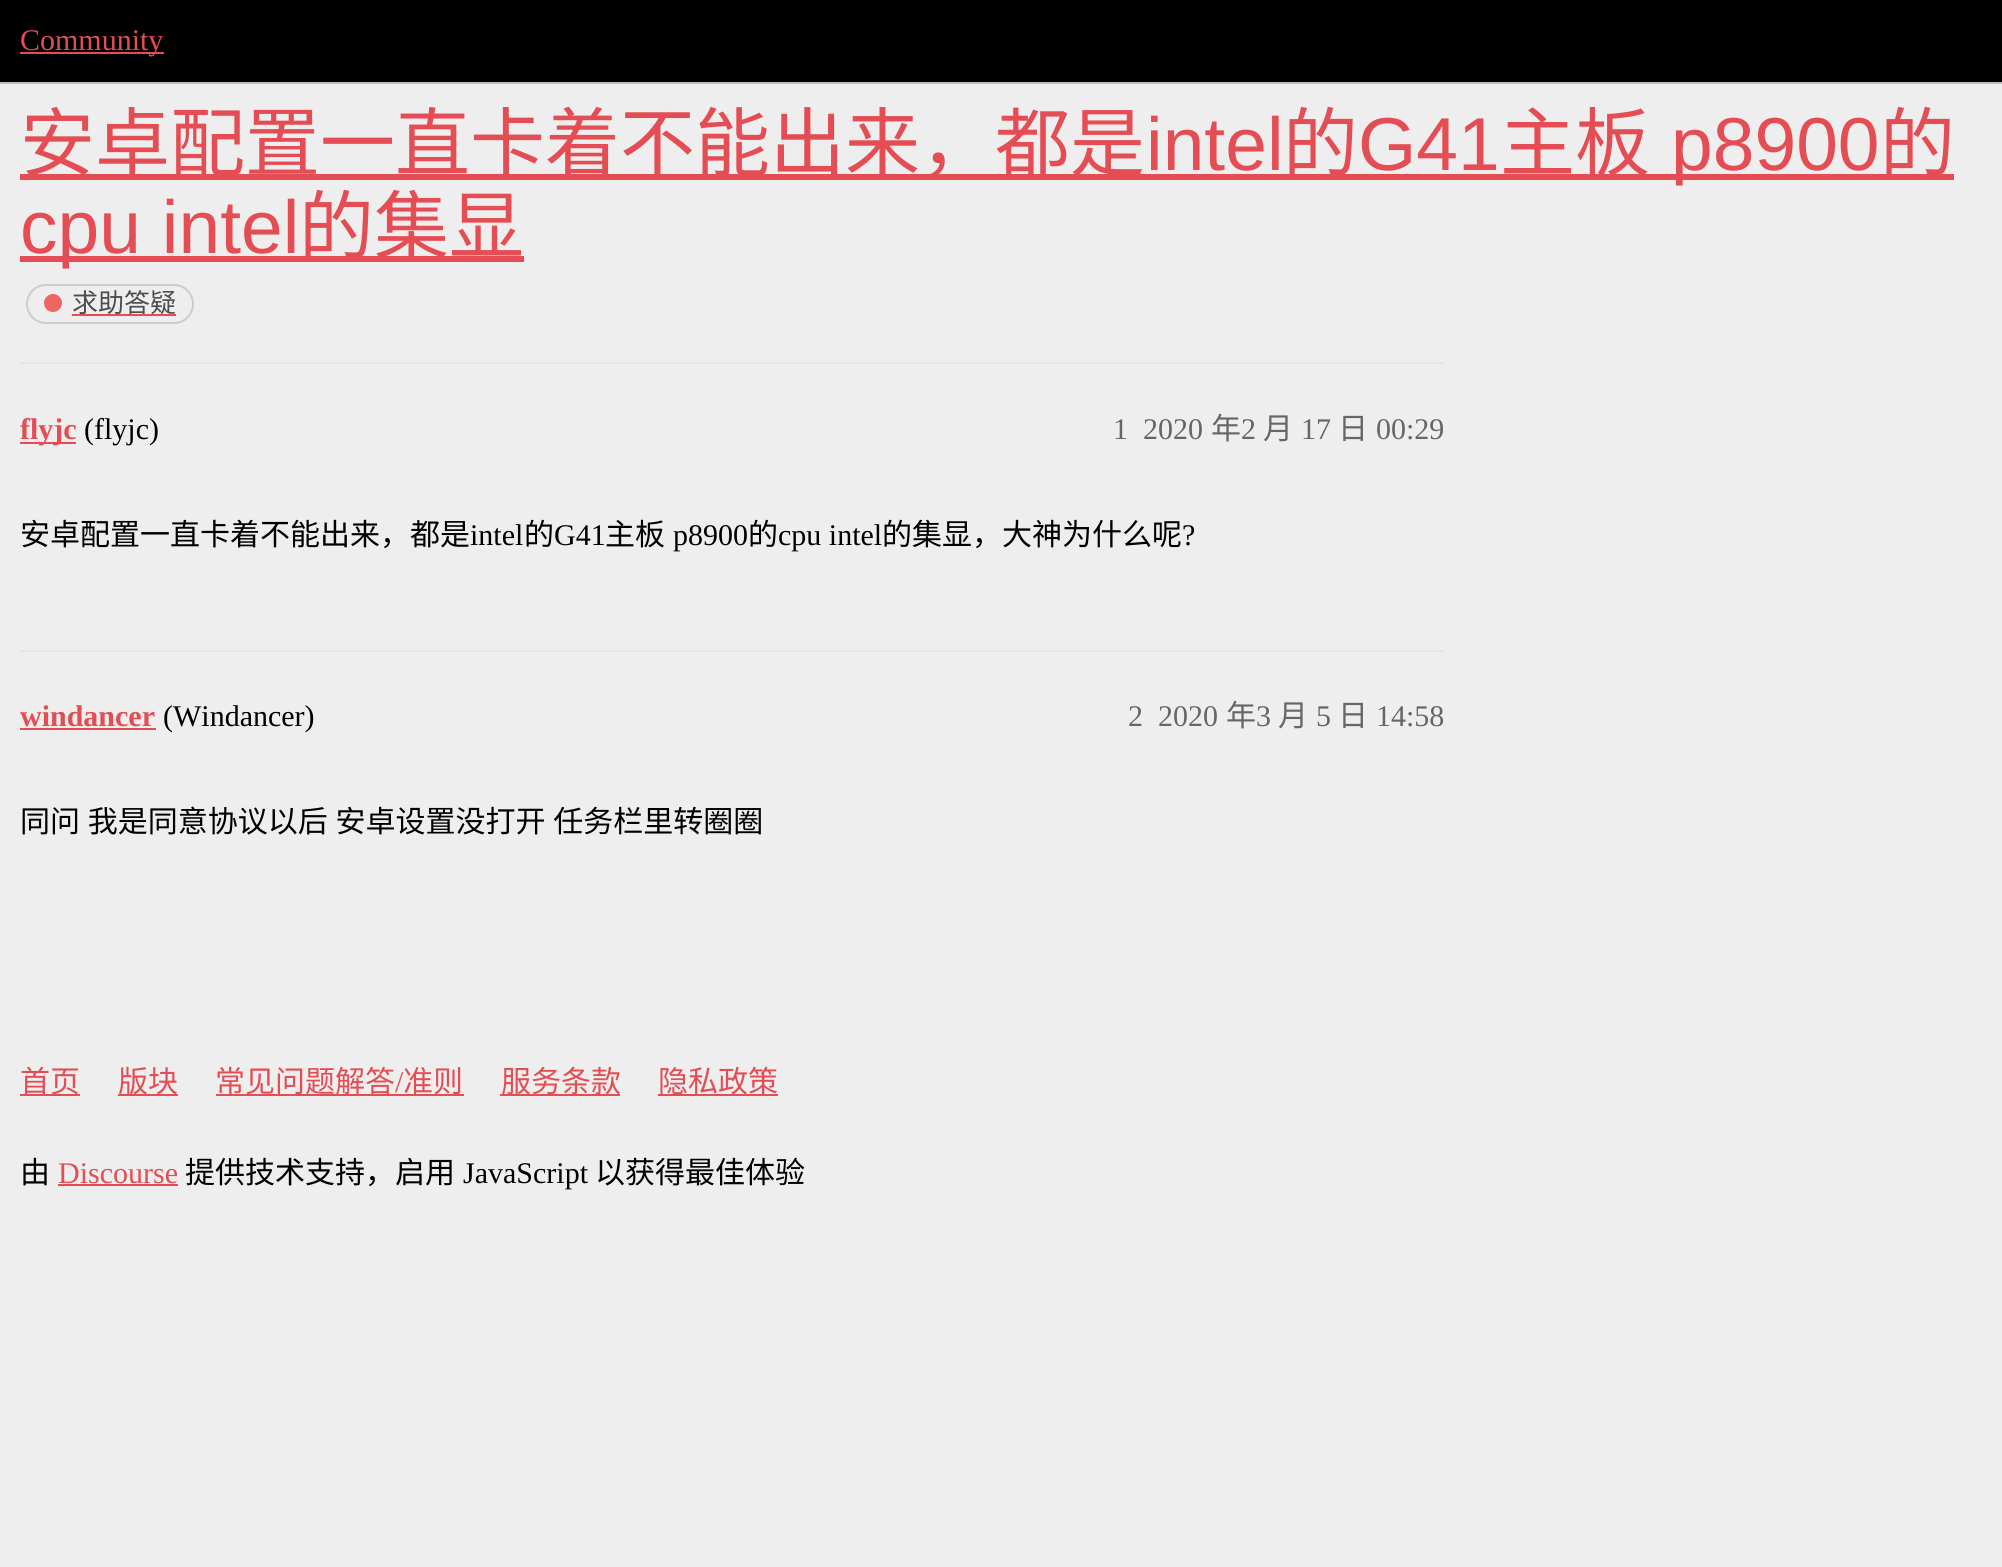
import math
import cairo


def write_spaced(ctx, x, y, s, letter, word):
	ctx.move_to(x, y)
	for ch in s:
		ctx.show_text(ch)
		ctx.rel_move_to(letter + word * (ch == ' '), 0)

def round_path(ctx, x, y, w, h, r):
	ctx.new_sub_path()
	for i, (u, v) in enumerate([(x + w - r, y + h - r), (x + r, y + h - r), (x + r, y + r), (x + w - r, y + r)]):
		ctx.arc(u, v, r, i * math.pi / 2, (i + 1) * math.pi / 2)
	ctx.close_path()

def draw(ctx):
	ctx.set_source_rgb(0.933, 0.933, 0.933)
	ctx.paint()
	ctx.set_source_rgb(0, 0, 0)
	ctx.rectangle(0, 0, 2002, 82)
	ctx.fill()
	ctx.set_source_rgb(0.741, 0.741, 0.741)
	ctx.rectangle(0, 82, 2002, 2)
	ctx.fill()
	ctx.set_source_rgb(0.898, 0.302, 0.329)
	ctx.rectangle(20, 52, 144, 2)
	ctx.fill()
	ctx.select_font_face('Liberation Serif')
	ctx.set_font_size(30)
	ctx.move_to(20, 50)
	ctx.show_text('Community')
	ctx.rectangle(20, 174, 1934, 6)
	ctx.fill()
	ctx.select_font_face('Noto Sans CJK SC')
	ctx.set_font_size(75)
	ctx.move_to(20, 170)
	ctx.show_text('安卓配置一直卡着不能出来，都是')
	ctx.select_font_face('Liberation Sans')
	ctx.move_to(1146, 170)
	ctx.show_text('intel')
	ctx.select_font_face('Noto Sans CJK SC')
	ctx.move_to(1283, 170)
	ctx.show_text('的')
	ctx.select_font_face('Liberation Sans')
	ctx.move_to(1358, 170)
	ctx.show_text('G41')
	ctx.select_font_face('Noto Sans CJK SC')
	ctx.move_to(1500, 170)
	ctx.show_text('主板')
	ctx.select_font_face('Liberation Sans')
	ctx.move_to(1671, 170)
	ctx.show_text('p8900')
	ctx.select_font_face('Noto Sans CJK SC')
	ctx.move_to(1880, 170)
	ctx.show_text('的')
	ctx.rectangle(20, 256, 504, 6)
	ctx.fill()
	ctx.select_font_face('Liberation Sans')
	ctx.move_to(20, 253)
	ctx.show_text('cpu intel')
	ctx.select_font_face('Noto Sans CJK SC')
	ctx.move_to(299, 253)
	ctx.show_text('的集显')
	round_path(ctx, 27, 285, 166, 38, 19)
	ctx.set_source_rgb(0.8, 0.8, 0.8)
	ctx.stroke()
	ctx.set_source_rgb(0.929, 0.4, 0.388)
	ctx.arc(53, 303, 9, 0, 2 * math.pi)
	ctx.fill()
	ctx.set_source_rgb(0.898, 0.302, 0.329)
	ctx.rectangle(72, 314, 104, 2)
	ctx.fill()
	ctx.set_font_size(26)
	ctx.set_source_rgb(0.302, 0.302, 0.302)
	ctx.move_to(72, 312)
	ctx.show_text('求助答疑')
	ctx.set_source_rgb(0.902, 0.902, 0.902)
	ctx.rectangle(20, 362, 1424, 2)
	ctx.fill()
	ctx.set_source_rgb(0.898, 0.302, 0.329)
	ctx.rectangle(20, 442, 56, 2)
	ctx.fill()
	ctx.select_font_face('Liberation Serif', cairo.FONT_SLANT_NORMAL, cairo.FONT_WEIGHT_BOLD)
	ctx.set_font_size(30)
	ctx.move_to(20, 439)
	ctx.show_text('flyjc')
	ctx.select_font_face('Liberation Serif')
	ctx.set_source_rgb(0, 0, 0)
	ctx.move_to(84, 439)
	ctx.show_text('(flyjc)')
	ctx.set_source_rgb(0.4, 0.4, 0.4)
	ctx.move_to(1113, 439)
	ctx.show_text('1')
	ctx.move_to(1143, 439)
	ctx.show_text('2020')
	ctx.select_font_face('Noto Sans CJK SC')
	ctx.move_to(1211, 439)
	ctx.show_text('年')
	ctx.select_font_face('Liberation Serif')
	ctx.move_to(1241, 439)
	ctx.show_text('2')
	ctx.select_font_face('Noto Sans CJK SC')
	ctx.move_to(1263, 439)
	ctx.show_text('月')
	ctx.select_font_face('Liberation Serif')
	ctx.move_to(1301, 439)
	ctx.show_text('17')
	ctx.select_font_face('Noto Sans CJK SC')
	ctx.move_to(1338, 439)
	ctx.show_text('日')
	ctx.select_font_face('Liberation Serif')
	ctx.move_to(1376, 439)
	ctx.show_text('00:29')
	ctx.select_font_face('Noto Sans CJK SC')
	ctx.set_source_rgb(0, 0, 0)
	ctx.move_to(20, 545)
	ctx.show_text('安卓配置一直卡着不能出来，都是')
	ctx.select_font_face('Liberation Serif')
	ctx.move_to(470, 545)
	ctx.show_text('intel')
	ctx.select_font_face('Noto Sans CJK SC')
	ctx.move_to(524, 545)
	ctx.show_text('的')
	ctx.select_font_face('Liberation Serif')
	ctx.move_to(554, 545)
	ctx.show_text('G41')
	ctx.select_font_face('Noto Sans CJK SC')
	ctx.move_to(605, 545)
	ctx.show_text('主板')
	ctx.select_font_face('Liberation Serif')
	ctx.move_to(673, 545)
	ctx.show_text('p8900')
	ctx.select_font_face('Noto Sans CJK SC')
	ctx.move_to(748, 545)
	ctx.show_text('的')
	ctx.select_font_face('Liberation Serif')
	ctx.move_to(778, 545)
	ctx.show_text('cpu intel')
	ctx.select_font_face('Noto Sans CJK SC')
	ctx.move_to(882, 545)
	ctx.show_text('的集显，大神为什么呢')
	ctx.select_font_face('Liberation Serif')
	ctx.move_to(1182, 545)
	ctx.show_text('?')
	ctx.set_source_rgb(0.902, 0.902, 0.902)
	ctx.rectangle(20, 650, 1424, 2)
	ctx.fill()
	ctx.select_font_face('Liberation Serif', cairo.FONT_SLANT_NORMAL, cairo.FONT_WEIGHT_BOLD)
	ctx.set_source_rgb(0.898, 0.302, 0.329)
	ctx.move_to(20, 726)
	ctx.show_text('windancer')
	ctx.rectangle(20, 728, 136, 2)
	ctx.fill()
	ctx.select_font_face('Liberation Serif')
	ctx.set_source_rgb(0, 0, 0)
	ctx.move_to(163, 726)
	ctx.show_text('(Windancer)')
	ctx.set_source_rgb(0.4, 0.4, 0.4)
	ctx.move_to(1128, 726)
	ctx.show_text('2')
	ctx.move_to(1158, 726)
	ctx.show_text('2020')
	ctx.select_font_face('Noto Sans CJK SC')
	ctx.move_to(1226, 726)
	ctx.show_text('年')
	ctx.select_font_face('Liberation Serif')
	ctx.move_to(1256, 726)
	ctx.show_text('3')
	ctx.select_font_face('Noto Sans CJK SC')
	ctx.move_to(1278, 726)
	ctx.show_text('月')
	ctx.select_font_face('Liberation Serif')
	ctx.move_to(1316, 726)
	ctx.show_text('5')
	ctx.select_font_face('Noto Sans CJK SC')
	ctx.move_to(1338, 726)
	ctx.show_text('日')
	ctx.select_font_face('Liberation Serif')
	ctx.move_to(1376, 726)
	ctx.show_text('14:58')
	ctx.select_font_face('Noto Sans CJK SC')
	ctx.set_source_rgb(0, 0, 0)
	write_spaced(ctx, 20, 832, '同问 我是同意协议以后 安卓设置没打开 任务栏里转圈圈', 0, 1)
	ctx.set_source_rgb(0.898, 0.302, 0.329)
	ctx.rectangle(20, 1094, 60, 2)
	ctx.fill()
	ctx.move_to(20, 1092)
	ctx.show_text('首页')
	ctx.rectangle(118, 1094, 60, 2)
	ctx.fill()
	ctx.move_to(118, 1092)
	ctx.show_text('版块')
	ctx.rectangle(216, 1094, 248, 2)
	ctx.fill()
	ctx.move_to(215, 1092)
	ctx.show_text('常见问题解答')
	ctx.select_font_face('Liberation Serif')
	ctx.move_to(395, 1092)
	ctx.show_text('/')
	ctx.select_font_face('Noto Sans CJK SC')
	ctx.move_to(403, 1092)
	ctx.show_text('准则')
	ctx.rectangle(500, 1094, 120, 2)
	ctx.fill()
	ctx.move_to(501, 1092)
	ctx.show_text('服务条款')
	ctx.rectangle(658, 1094, 120, 2)
	ctx.fill()
	ctx.move_to(658, 1092)
	ctx.show_text('隐私政策')
	ctx.set_source_rgb(0, 0, 0)
	ctx.move_to(20, 1183)
	ctx.show_text('由')
	ctx.select_font_face('Liberation Serif')
	ctx.set_source_rgb(0.898, 0.302, 0.329)
	ctx.move_to(58, 1183)
	ctx.show_text('Discourse')
	ctx.rectangle(58, 1184, 120, 2)
	ctx.fill()
	ctx.select_font_face('Noto Sans CJK SC')
	ctx.set_source_rgb(0, 0, 0)
	ctx.move_to(185, 1183)
	ctx.show_text('提供技术支持，启用')
	ctx.select_font_face('Liberation Serif')
	ctx.move_to(463, 1183)
	ctx.show_text('JavaScript')
	ctx.select_font_face('Noto Sans CJK SC')
	ctx.move_to(595, 1183)
	ctx.show_text('以获得最佳体验')


surface = cairo.ImageSurface(cairo.FORMAT_RGB24, 2002, 1567)
ctx = cairo.Context(surface)
options = cairo.FontOptions()
options.set_hint_metrics(cairo.HINT_METRICS_OFF)
options.set_hint_style(cairo.HINT_STYLE_NONE)
ctx.set_font_options(options)
ctx.set_miter_limit(4)
draw(ctx)
surface.write_to_png('image.png')
